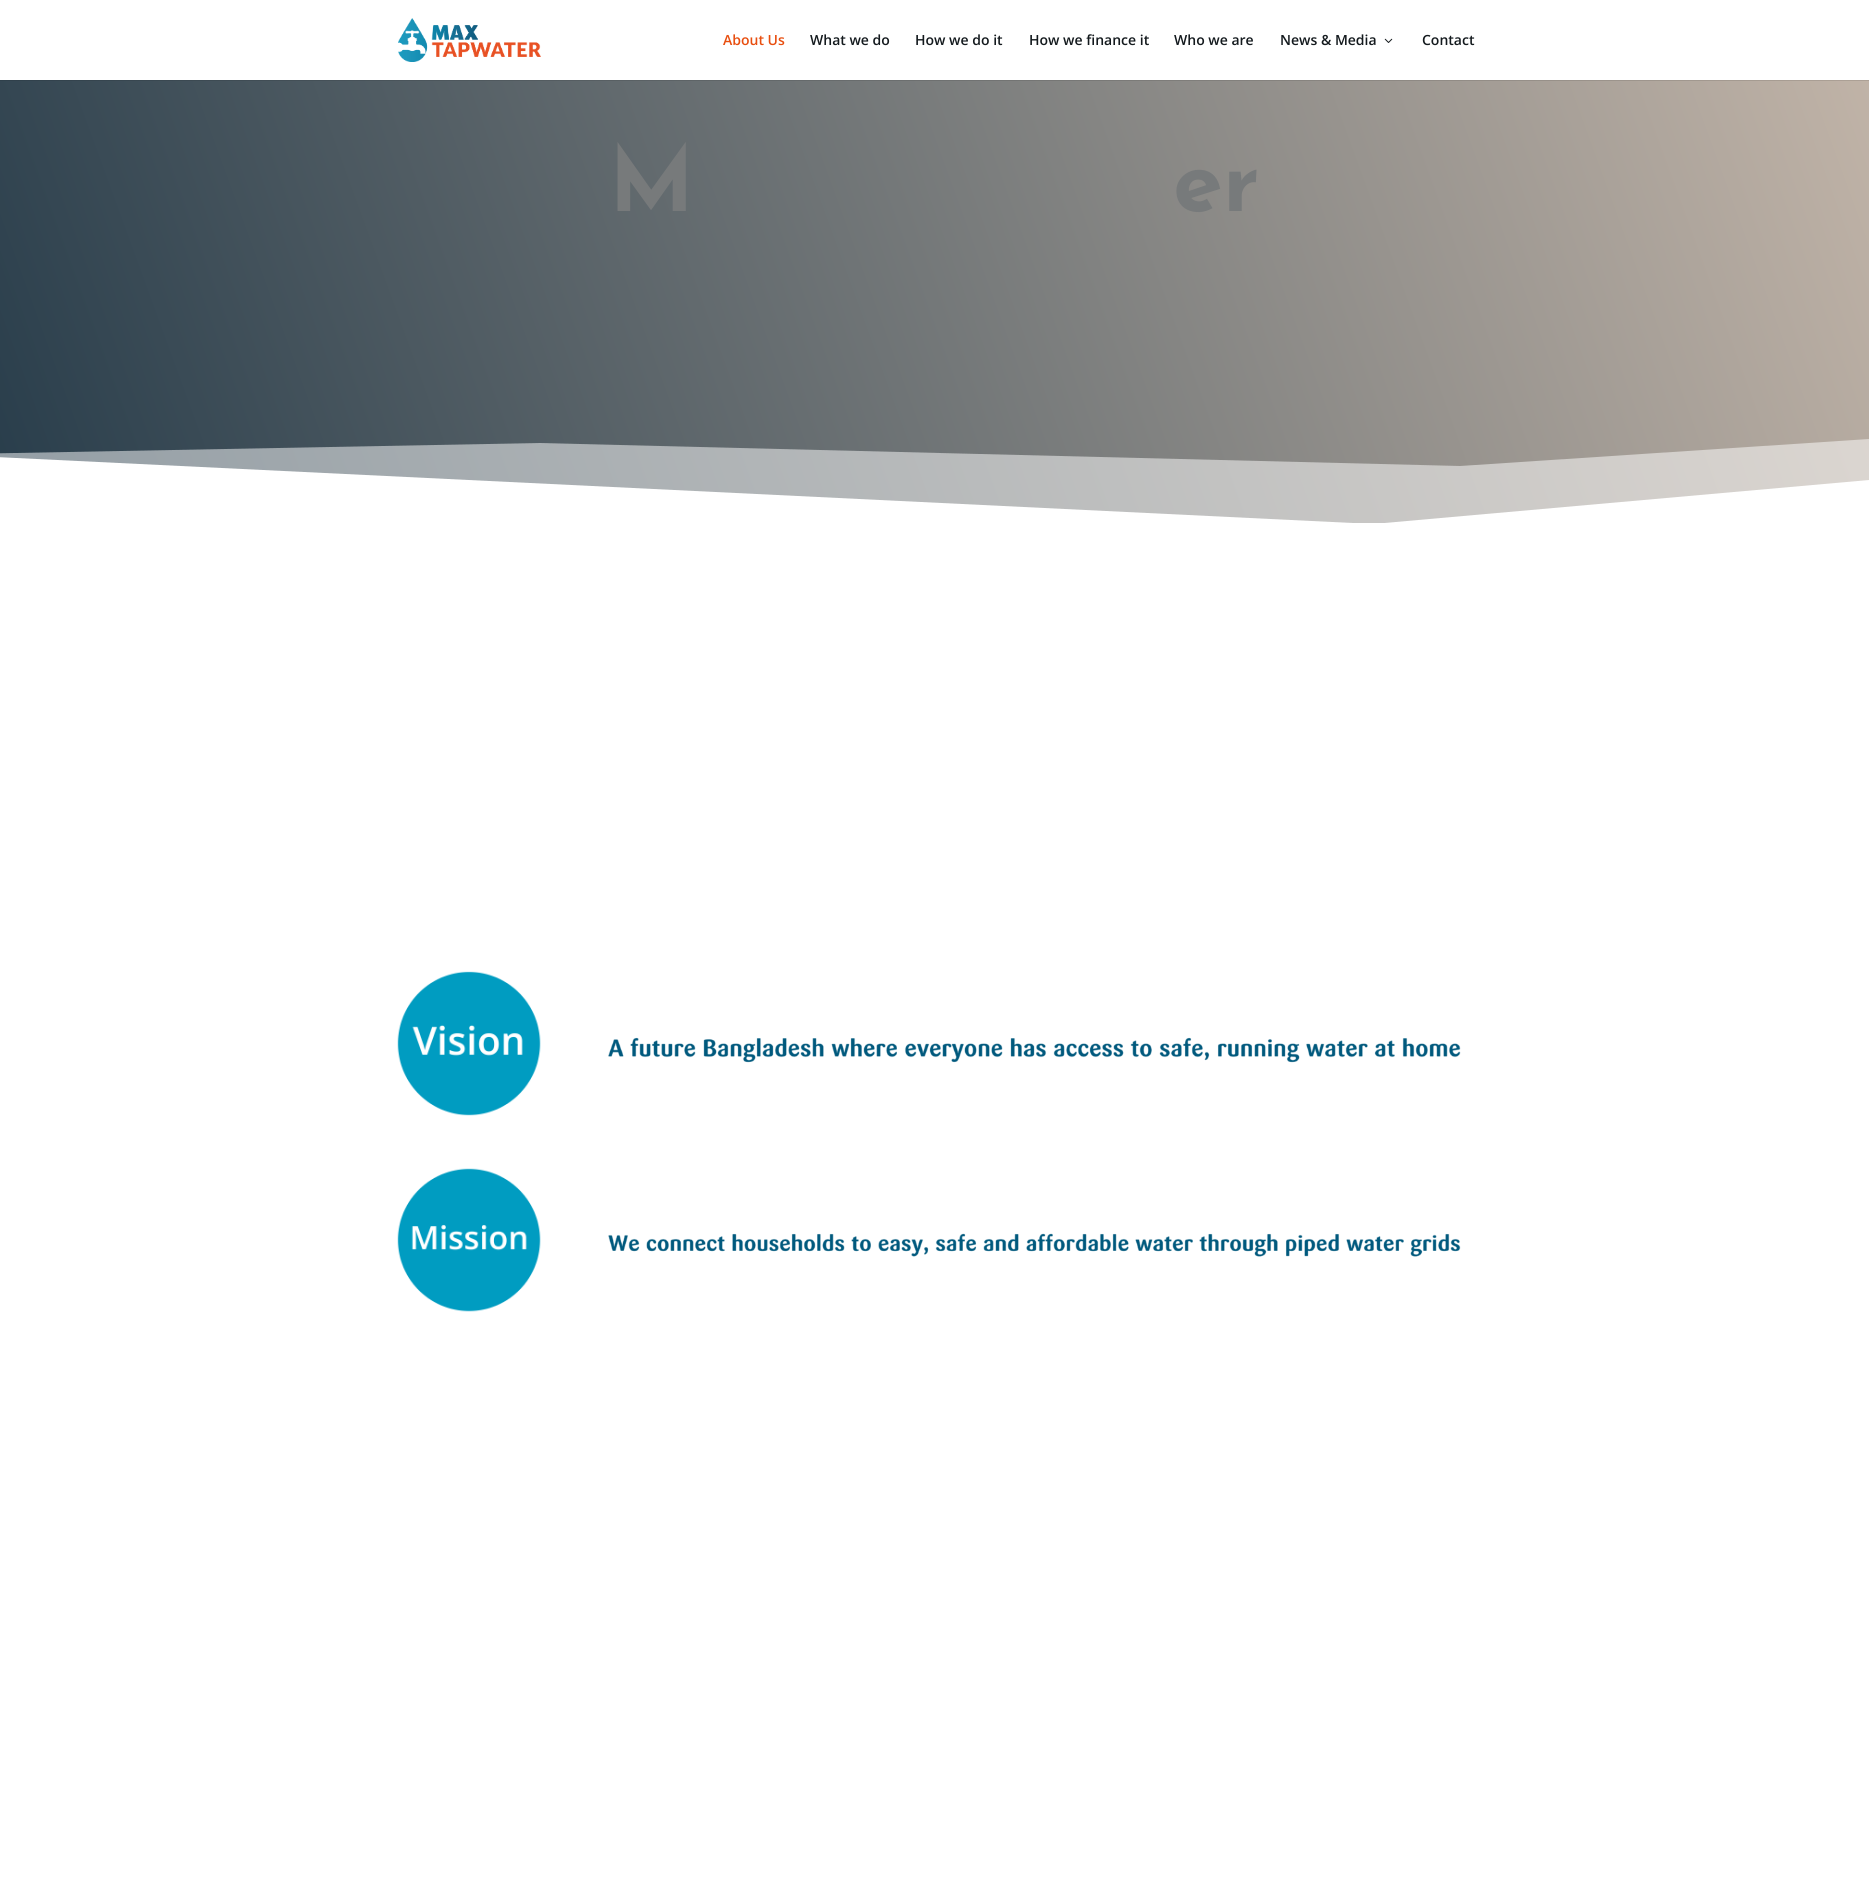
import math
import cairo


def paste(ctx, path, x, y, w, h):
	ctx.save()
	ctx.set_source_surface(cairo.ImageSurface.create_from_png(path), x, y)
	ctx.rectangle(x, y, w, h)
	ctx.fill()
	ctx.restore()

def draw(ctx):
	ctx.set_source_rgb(1, 1, 1)
	ctx.paint()
	paste(ctx, 'media/1.png', 398, 18, 143, 44)
	ctx.select_font_face('Open Sans SemiBold')
	ctx.set_font_size(14)
	ctx.set_source_rgb(0.91, 0.306, 0.059)
	ctx.move_to(723, 45)
	ctx.show_text('About Us')
	ctx.set_source_rgb(0.082, 0.102, 0.118)
	for x, y, s in [
		(810, 45, 'What we do'),
		(915, 45, 'How we do it'),
		(1029, 45, 'How we finance it'),
		(1174, 45, 'Who we are'),
		(1280, 45, 'News & Media'),
	]:
		ctx.move_to(x, y)
		ctx.show_text(s)
	paste(ctx, 'media/2.png', 1384, 38, 9, 5)
	ctx.move_to(1422, 45)
	ctx.show_text('Contact')
	gradient = cairo.LinearGradient(38, 628, 1831, -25)
	gradient.add_color_stop_rgba(0, 0.157, 0.239, 0.294, 1)
	gradient.add_color_stop_rgba(1, 0.753, 0.702, 0.655, 1)
	ctx.set_source(gradient)
	ctx.rectangle(0, 81, 1869, 442)
	ctx.fill()
	gradient = cairo.LinearGradient(38, 628, 1831, -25)
	gradient.add_color_stop_rgba(0, 0.141, 0.216, 0.267, 1)
	gradient.add_color_stop_rgba(1, 0.678, 0.631, 0.588, 1)
	ctx.set_source(gradient)
	ctx.rectangle(0, 80, 1869, 1)
	ctx.fill()
	ctx.select_font_face('Josefin Sans', cairo.FONT_SLANT_NORMAL, cairo.FONT_WEIGHT_BOLD)
	ctx.set_font_size(90)
	ctx.set_source_rgb(0.467, 0.478, 0.482)
	ctx.move_to(609, 211)
	ctx.show_text('M')
	ctx.move_to(1173, 211)
	ctx.show_text('er')
	ctx.set_source_rgba(1, 1, 1, 0.5)
	ctx.new_path()
	ctx.move_to(1869, 439)
	ctx.line_to(1460, 466)
	ctx.line_to(539, 443)
	ctx.line_to(-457, 462)
	ctx.line_to(-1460, 426)
	ctx.line_to(-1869, 439)
	ctx.line_to(-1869, 524)
	ctx.line_to(1869, 524)
	ctx.close_path()
	ctx.fill()
	ctx.set_source_rgb(1, 1, 1)
	ctx.new_path()
	ctx.move_to(1869, 524)
	ctx.line_to(1869, 480)
	ctx.line_to(1373, 524)
	ctx.line_to(-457, 435)
	ctx.line_to(-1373, 443)
	ctx.line_to(-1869, 480)
	ctx.line_to(-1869, 524)
	ctx.close_path()
	ctx.fill()
	paste(ctx, 'media/3.png', 397, 971, 144, 145)
	paste(ctx, 'media/4.png', 608, 1037, 853, 26)
	paste(ctx, 'media/5.png', 397, 1168, 144, 144)
	paste(ctx, 'media/6.png', 608, 1233, 853, 24)


surface = cairo.ImageSurface(cairo.FORMAT_RGB24, 1869, 1885)
ctx = cairo.Context(surface)
options = cairo.FontOptions()
options.set_hint_metrics(cairo.HINT_METRICS_OFF)
options.set_hint_style(cairo.HINT_STYLE_NONE)
ctx.set_font_options(options)
ctx.set_miter_limit(4)
draw(ctx)
surface.write_to_png('image.png')
